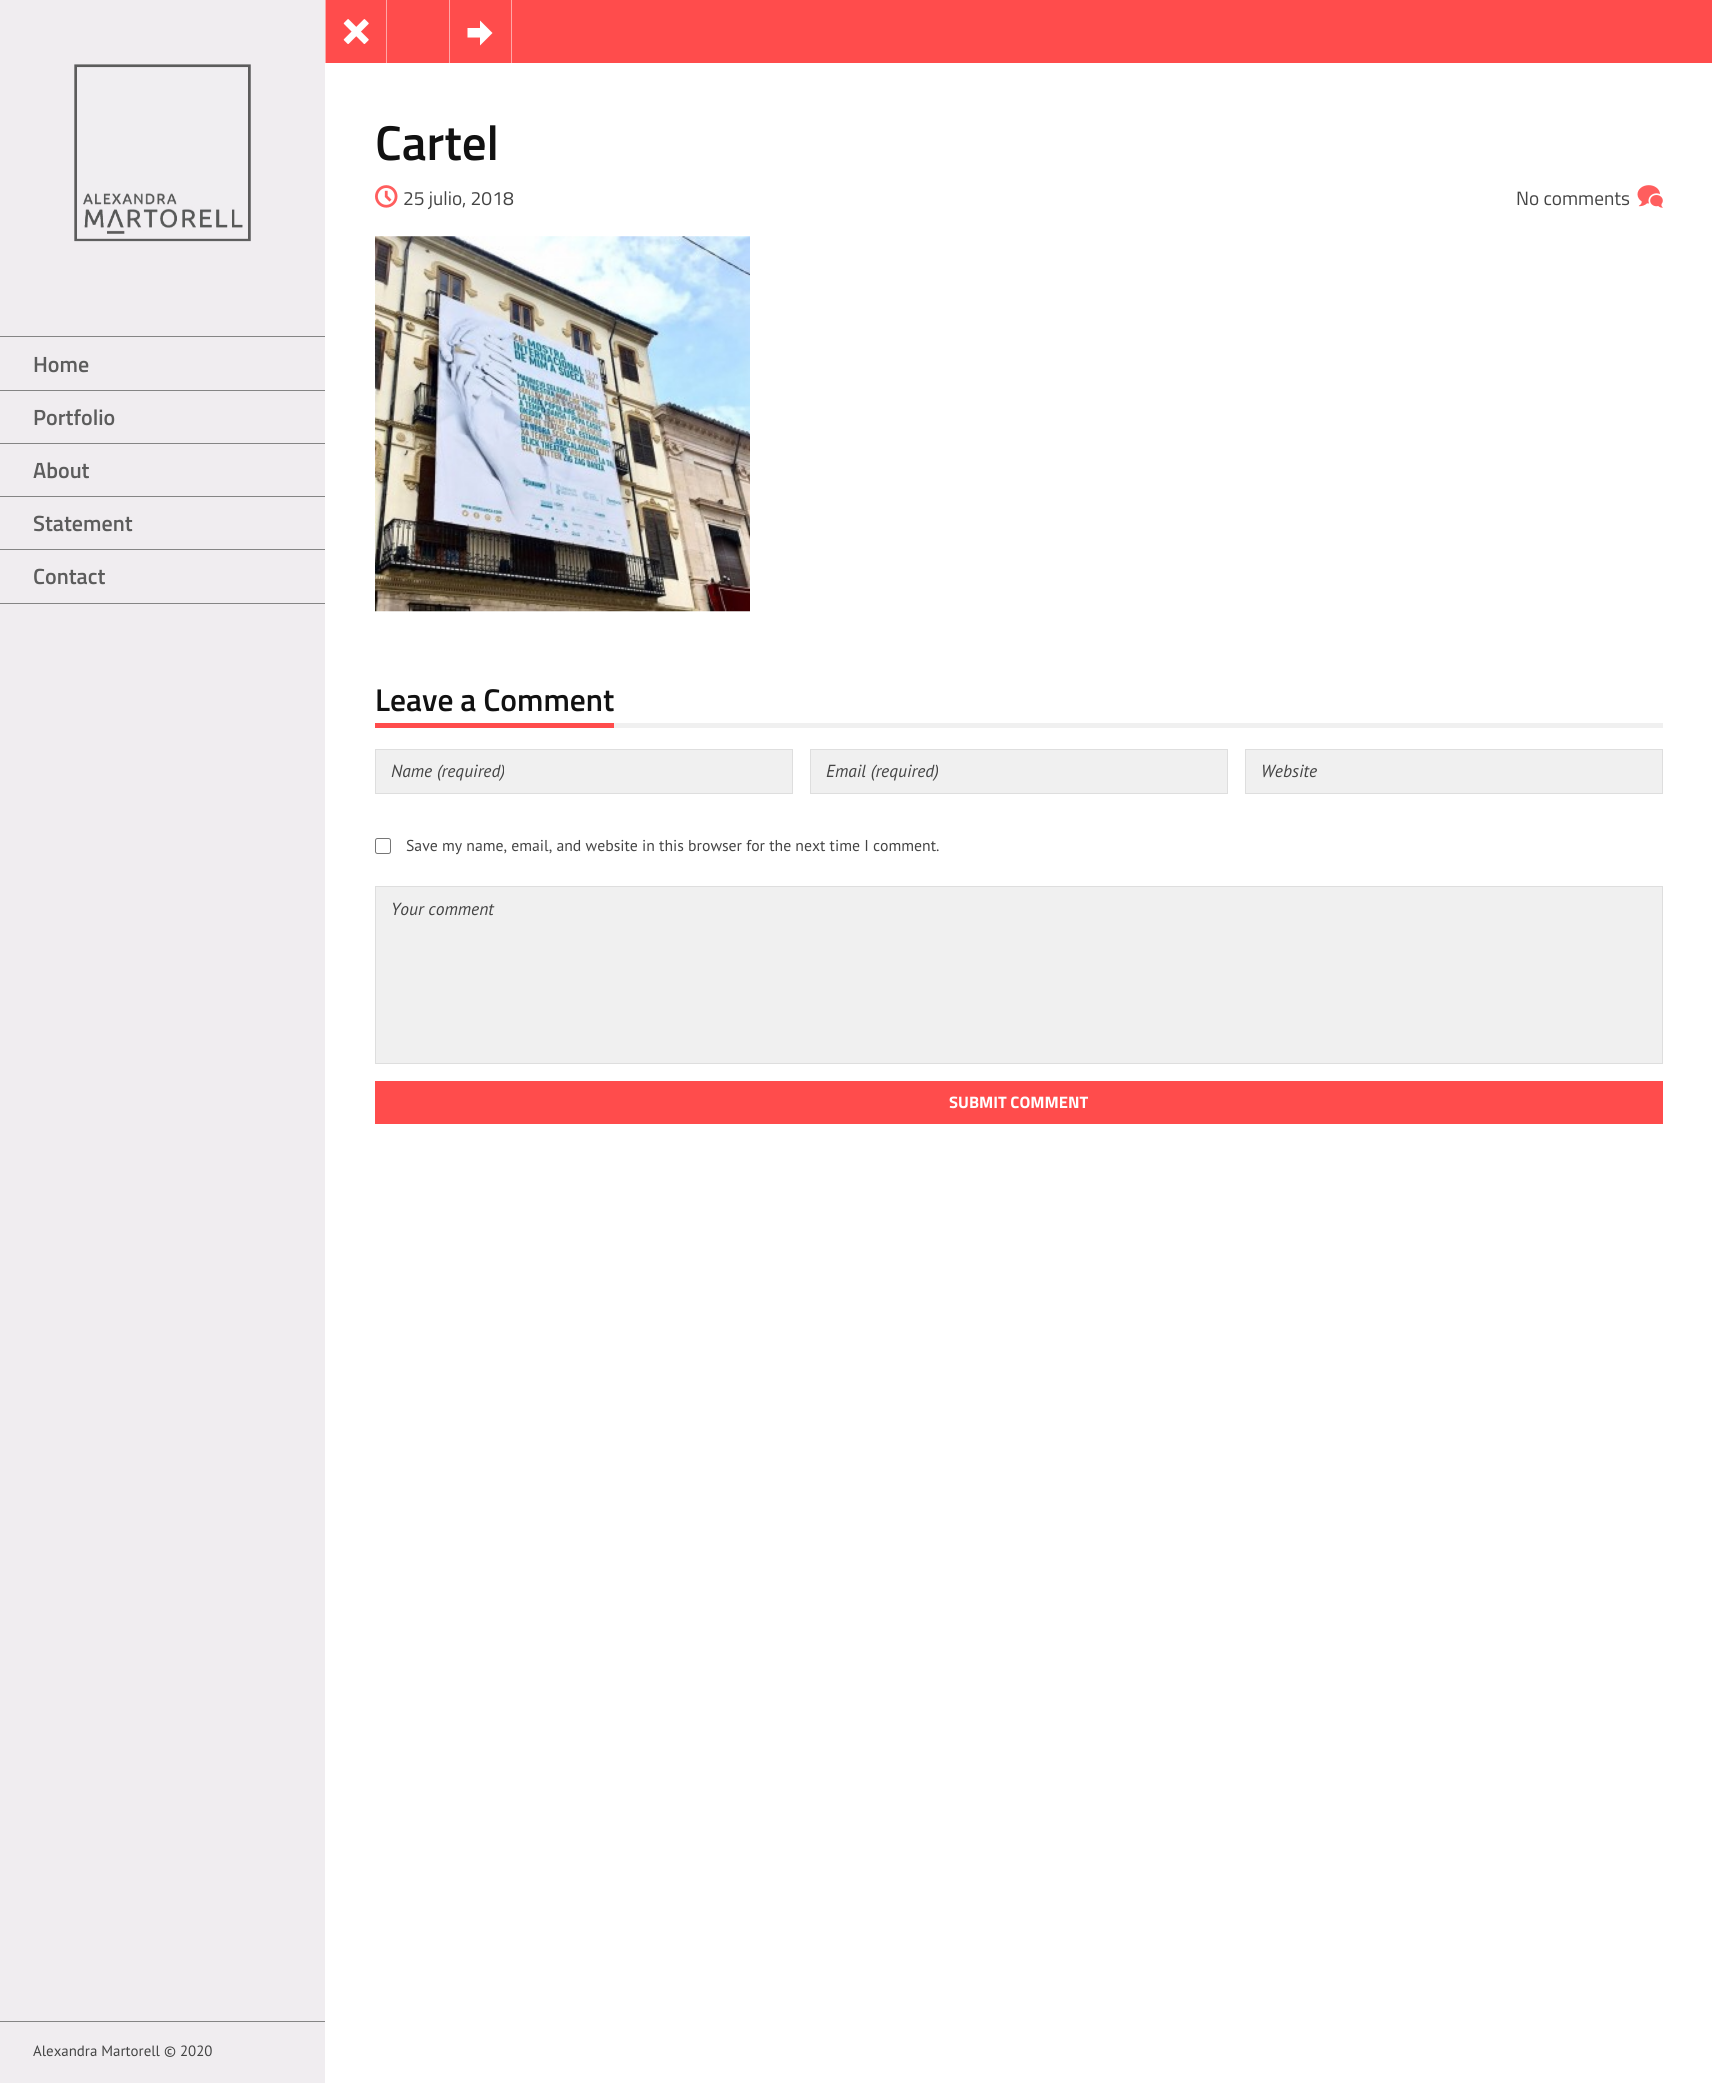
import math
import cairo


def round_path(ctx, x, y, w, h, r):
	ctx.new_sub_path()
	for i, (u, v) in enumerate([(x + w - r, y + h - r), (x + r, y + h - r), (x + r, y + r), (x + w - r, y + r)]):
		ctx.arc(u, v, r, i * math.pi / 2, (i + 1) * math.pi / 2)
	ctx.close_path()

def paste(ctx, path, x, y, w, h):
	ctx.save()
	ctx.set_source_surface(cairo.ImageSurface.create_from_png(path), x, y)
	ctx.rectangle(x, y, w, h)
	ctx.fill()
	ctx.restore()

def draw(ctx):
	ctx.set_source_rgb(1, 1, 1)
	ctx.paint()
	ctx.set_source_rgb(1, 0.298, 0.298)
	ctx.rectangle(326, 0, 1386, 63)
	ctx.fill()
	ctx.set_source_rgb(1, 0.651, 0.651)
	ctx.rectangle(386, 0, 1, 63)
	ctx.rectangle(325, 0, 1, 63)
	ctx.fill()
	paste(ctx, 'media/1.png', 343, 19, 26, 25)
	ctx.rectangle(449, 0, 1, 63)
	ctx.fill()
	ctx.rectangle(511, 0, 1, 63)
	ctx.fill()
	ctx.set_source_rgb(1, 1, 1)
	ctx.new_path()
	ctx.move_to(492.5, 33)
	ctx.line_to(480, 45.5)
	ctx.line_to(480, 37.5)
	ctx.line_to(467.5, 37.5)
	ctx.line_to(467.5, 28)
	ctx.line_to(480, 28)
	ctx.line_to(480, 20.5)
	ctx.close_path()
	ctx.fill()
	ctx.set_source_rgb(0.941, 0.929, 0.941)
	ctx.rectangle(0, 0, 325, 2083)
	ctx.fill()
	paste(ctx, 'media/2.png', 74, 64, 177, 178)
	ctx.set_source_rgb(0.522, 0.522, 0.522)
	ctx.rectangle(0, 336, 325, 1)
	ctx.fill()
	ctx.rectangle(0, 390, 325, 1)
	ctx.fill()
	ctx.select_font_face('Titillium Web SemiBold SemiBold')
	ctx.set_font_size(22)
	ctx.set_source_rgb(0.361, 0.361, 0.361)
	ctx.move_to(33, 372)
	ctx.show_text('Home')
	ctx.set_source_rgb(0.522, 0.522, 0.522)
	ctx.rectangle(0, 443, 325, 1)
	ctx.fill()
	ctx.set_source_rgb(0.361, 0.361, 0.361)
	ctx.move_to(33, 425)
	ctx.show_text('Portfolio')
	ctx.set_source_rgb(0.522, 0.522, 0.522)
	ctx.rectangle(0, 496, 325, 1)
	ctx.fill()
	ctx.set_source_rgb(0.361, 0.361, 0.361)
	ctx.move_to(33, 478)
	ctx.show_text('About')
	ctx.set_source_rgb(0.522, 0.522, 0.522)
	ctx.rectangle(0, 549, 325, 1)
	ctx.fill()
	ctx.set_source_rgb(0.361, 0.361, 0.361)
	ctx.move_to(33, 531)
	ctx.show_text('Statement')
	ctx.set_source_rgb(0.522, 0.522, 0.522)
	ctx.rectangle(0, 603, 325, 1)
	ctx.fill()
	ctx.set_source_rgb(0.361, 0.361, 0.361)
	ctx.move_to(33, 584)
	ctx.show_text('Contact')
	ctx.set_source_rgb(0.522, 0.522, 0.522)
	ctx.rectangle(0, 2021, 325, 1)
	ctx.fill()
	ctx.select_font_face('PT Sans')
	ctx.set_font_size(14.9)
	ctx.set_source_rgb(0.267, 0.267, 0.267)
	ctx.move_to(33, 2056)
	ctx.show_text('Alexandra Martorell © 2020')
	ctx.select_font_face('Titillium Web SemiBold SemiBold')
	ctx.set_font_size(49)
	ctx.set_source_rgb(0.067, 0.067, 0.067)
	ctx.move_to(375, 160)
	ctx.show_text('Cartel')
	paste(ctx, 'media/3.png', 375, 185, 23, 23)
	ctx.select_font_face('Titillium Web')
	ctx.set_font_size(19.25)
	ctx.set_source_rgb(0.267, 0.267, 0.267)
	ctx.move_to(403, 205)
	ctx.show_text('25 julio, 2018')
	ctx.move_to(1516, 205)
	ctx.show_text('No comments')
	paste(ctx, 'media/4.png', 1637, 185, 26, 23)
	paste(ctx, 'media/5.png', 375, 236, 375, 376)
	ctx.set_source_rgb(1, 0.298, 0.298)
	ctx.rectangle(375, 723, 239, 5)
	ctx.fill()
	ctx.select_font_face('Titillium Web SemiBold SemiBold')
	ctx.set_font_size(31.5)
	ctx.set_source_rgb(0.067, 0.067, 0.067)
	ctx.move_to(375, 711)
	ctx.show_text('Leave a Comment')
	ctx.set_source_rgb(0.941, 0.941, 0.941)
	ctx.rectangle(614, 723, 1049, 5)
	ctx.fill()
	ctx.rectangle(375.5, 749.5, 417, 44)
	ctx.fill_preserve()
	ctx.set_source_rgb(0.871, 0.871, 0.871)
	ctx.set_line_width(1)
	ctx.stroke()
	ctx.select_font_face('PT Sans', cairo.FONT_SLANT_ITALIC)
	ctx.set_font_size(17.5)
	ctx.set_source_rgb(0.267, 0.267, 0.267)
	ctx.move_to(391, 777)
	ctx.show_text('Name (required)')
	ctx.set_source_rgb(0.941, 0.941, 0.941)
	ctx.rectangle(810.5, 749.5, 417, 44)
	ctx.fill_preserve()
	ctx.set_source_rgb(0.871, 0.871, 0.871)
	ctx.stroke()
	ctx.set_source_rgb(0.267, 0.267, 0.267)
	ctx.move_to(826, 777)
	ctx.show_text('Email (required)')
	ctx.set_source_rgb(0.941, 0.941, 0.941)
	ctx.rectangle(1245.5, 749.5, 417, 44)
	ctx.fill_preserve()
	ctx.set_source_rgb(0.871, 0.871, 0.871)
	ctx.stroke()
	ctx.set_source_rgb(0.267, 0.267, 0.267)
	ctx.move_to(1261, 777)
	ctx.show_text('Website')
	round_path(ctx, 375.5, 838.5, 15, 15, 2)
	ctx.set_source_rgb(0.463, 0.463, 0.463)
	ctx.stroke()
	ctx.select_font_face('PT Sans')
	ctx.set_font_size(15.75)
	ctx.set_source_rgb(0.267, 0.267, 0.267)
	ctx.move_to(406, 851)
	ctx.show_text('Save my name, email, and website in this browser for the next time I comment.')
	ctx.set_source_rgb(0.941, 0.941, 0.941)
	ctx.rectangle(375.5, 886.5, 1287, 177)
	ctx.fill_preserve()
	ctx.set_source_rgb(0.871, 0.871, 0.871)
	ctx.stroke()
	ctx.select_font_face('PT Sans', cairo.FONT_SLANT_ITALIC)
	ctx.set_font_size(17.5)
	ctx.set_source_rgb(0.267, 0.267, 0.267)
	ctx.move_to(391, 915)
	ctx.show_text('Your comment')
	ctx.set_source_rgb(1, 0.298, 0.298)
	ctx.rectangle(375, 1081, 1288, 43)
	ctx.fill()
	ctx.select_font_face('Titillium Web', cairo.FONT_SLANT_NORMAL, cairo.FONT_WEIGHT_BOLD)
	ctx.set_font_size(16.6)
	ctx.set_source_rgb(1, 1, 1)
	ctx.move_to(949, 1108)
	ctx.show_text('SUBMIT COMMENT')


surface = cairo.ImageSurface(cairo.FORMAT_RGB24, 1712, 2083)
ctx = cairo.Context(surface)
options = cairo.FontOptions()
options.set_hint_metrics(cairo.HINT_METRICS_OFF)
options.set_hint_style(cairo.HINT_STYLE_NONE)
ctx.set_font_options(options)
ctx.set_miter_limit(4)
draw(ctx)
surface.write_to_png('image.png')
